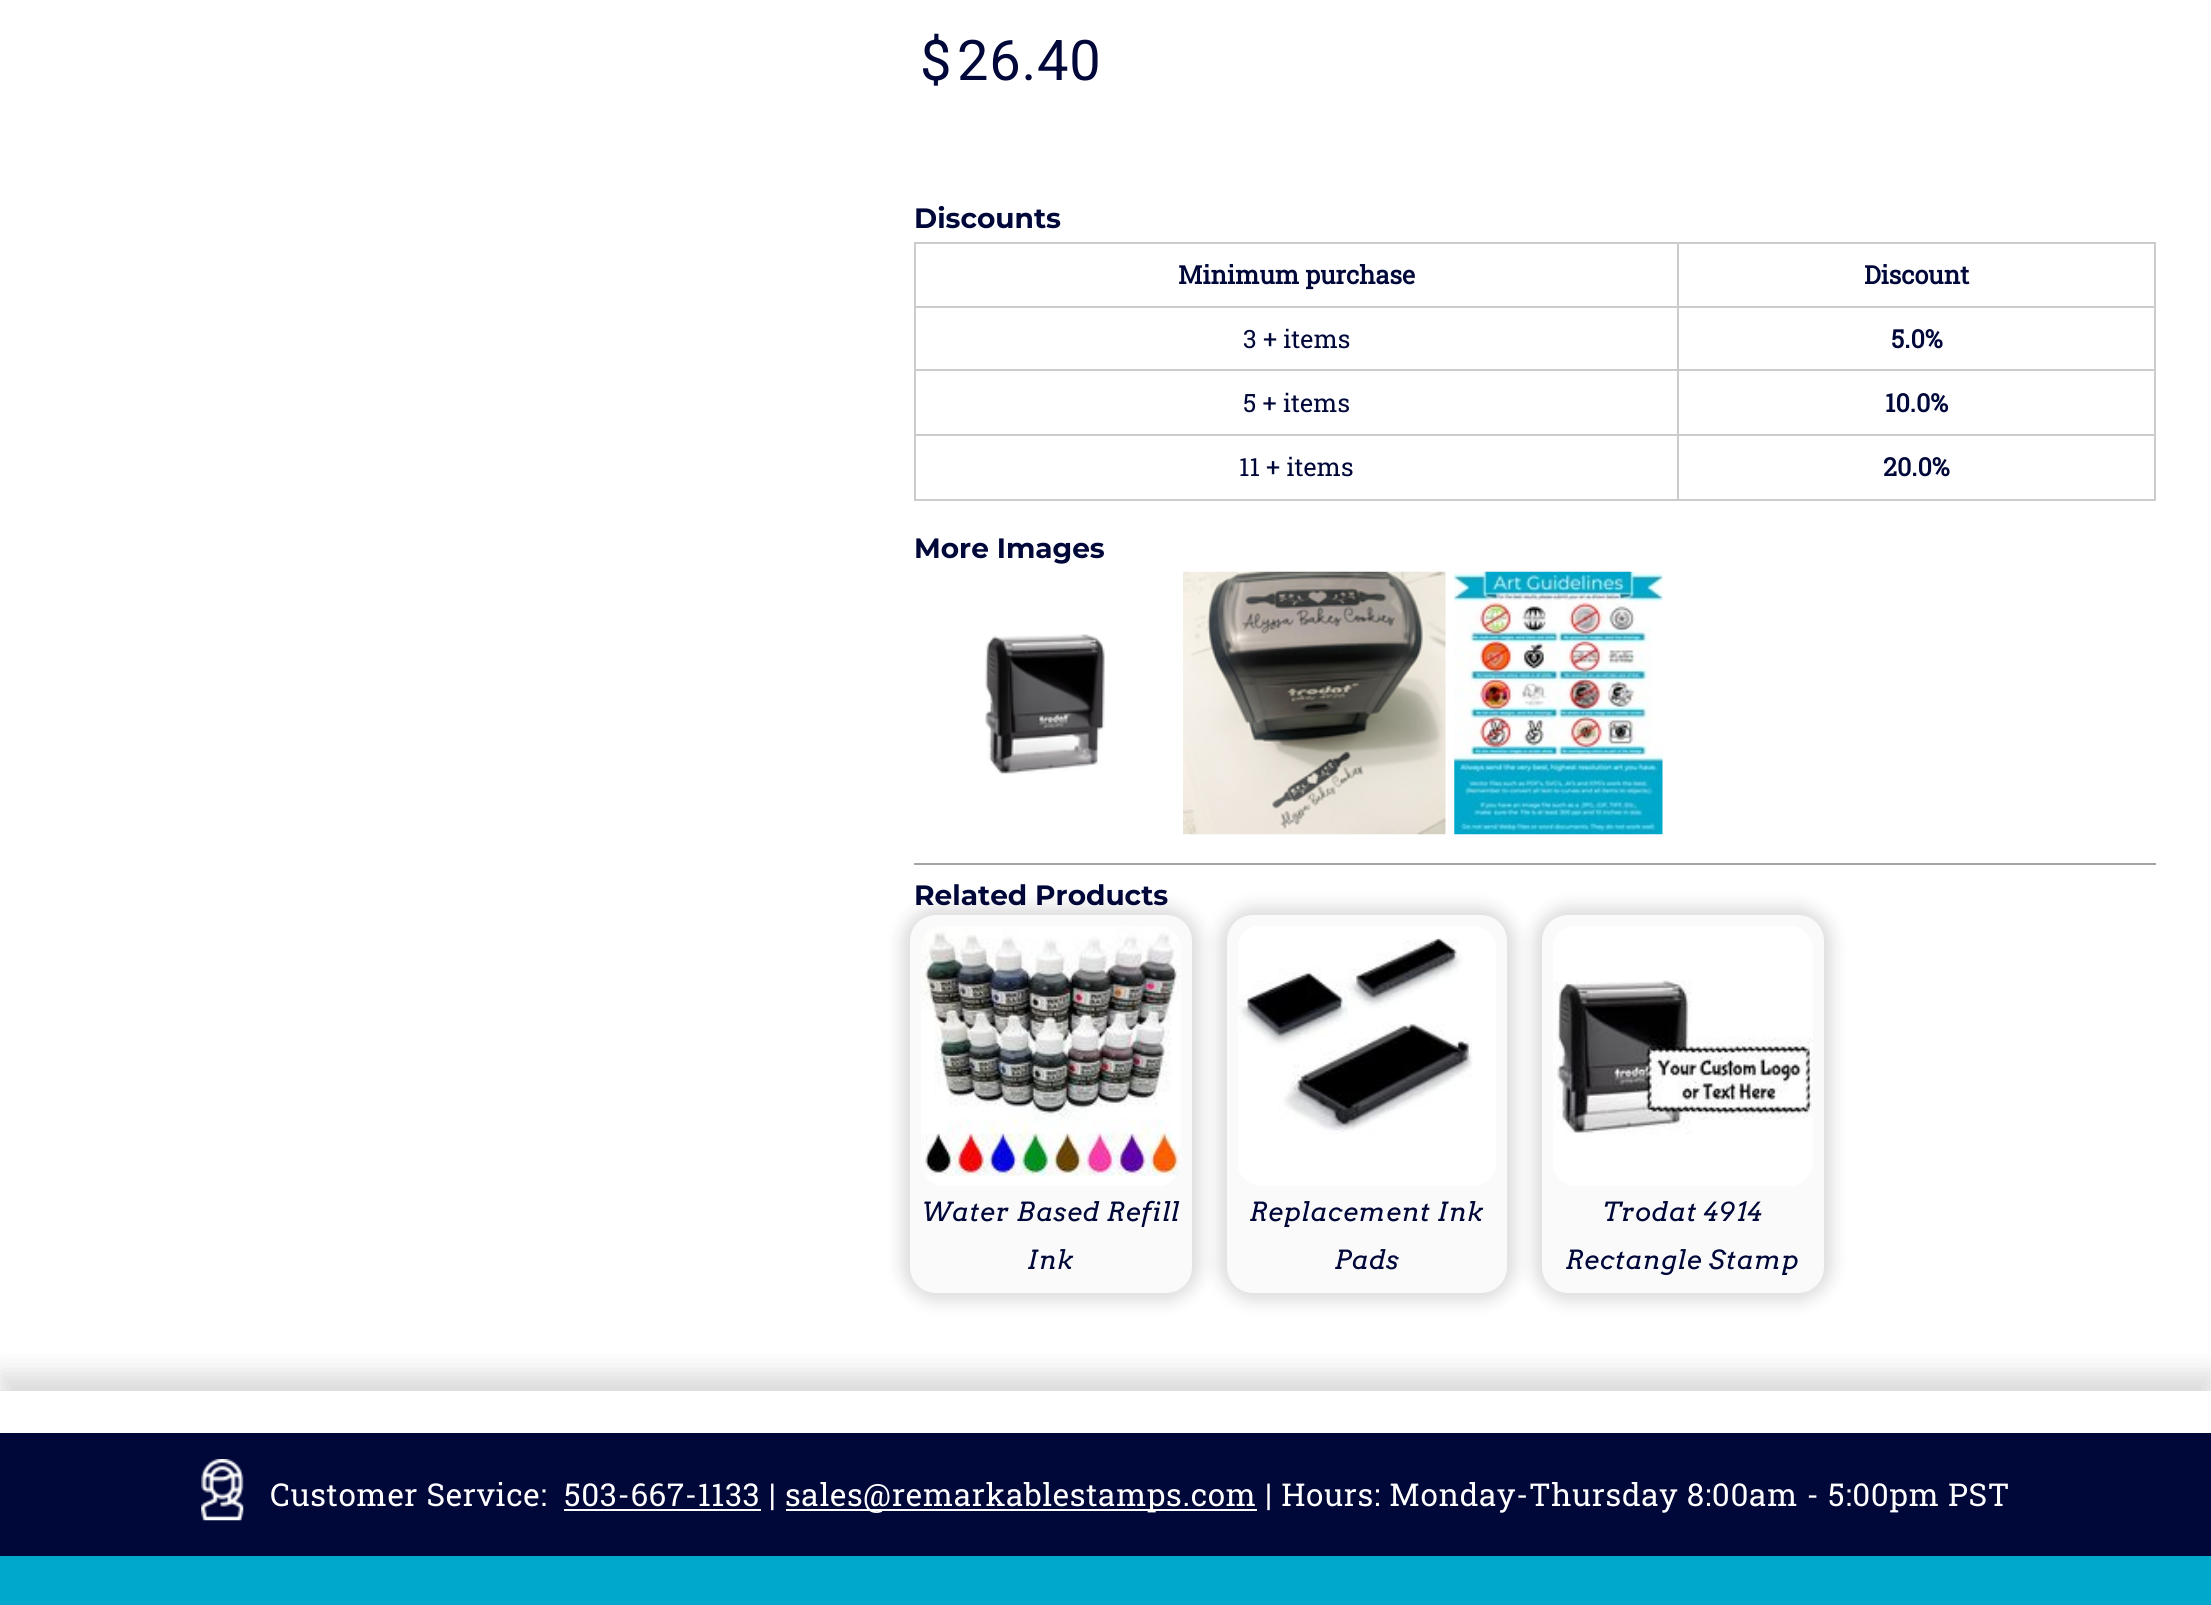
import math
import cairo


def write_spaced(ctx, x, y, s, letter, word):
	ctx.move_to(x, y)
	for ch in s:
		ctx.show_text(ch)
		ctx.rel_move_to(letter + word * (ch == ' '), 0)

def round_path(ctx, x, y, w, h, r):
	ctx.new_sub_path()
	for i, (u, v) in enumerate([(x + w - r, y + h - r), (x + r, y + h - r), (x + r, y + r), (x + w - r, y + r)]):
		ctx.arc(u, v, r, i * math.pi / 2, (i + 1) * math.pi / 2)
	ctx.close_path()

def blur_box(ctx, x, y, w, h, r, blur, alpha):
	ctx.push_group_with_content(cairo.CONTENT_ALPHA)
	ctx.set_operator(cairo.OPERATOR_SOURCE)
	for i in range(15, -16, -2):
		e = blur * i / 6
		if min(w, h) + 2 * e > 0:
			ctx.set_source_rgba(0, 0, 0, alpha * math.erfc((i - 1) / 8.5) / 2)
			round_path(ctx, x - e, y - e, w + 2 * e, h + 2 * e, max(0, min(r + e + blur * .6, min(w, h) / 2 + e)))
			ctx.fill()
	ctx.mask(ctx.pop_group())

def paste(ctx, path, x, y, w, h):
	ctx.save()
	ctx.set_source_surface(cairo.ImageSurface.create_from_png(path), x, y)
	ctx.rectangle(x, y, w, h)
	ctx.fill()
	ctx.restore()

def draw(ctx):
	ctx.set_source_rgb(1, 1, 1)
	ctx.paint()
	ctx.select_font_face('Roboto')
	ctx.set_font_size(56)
	ctx.set_source_rgb(0, 0.031, 0.224)
	write_spaced(ctx, 920, 80, '$', 0.75, 0)
	write_spaced(ctx, 957, 80, '26.40', 0.75, 0)
	ctx.select_font_face('Montserrat', cairo.FONT_SLANT_NORMAL, cairo.FONT_WEIGHT_BOLD)
	ctx.set_font_size(28)
	ctx.move_to(914, 228)
	ctx.show_text('Discounts')
	ctx.set_source_rgb(0.8, 0.8, 0.8)
	ctx.rectangle(914, 242, 1242, 2)
	ctx.rectangle(2154, 242, 2, 259)
	ctx.rectangle(914, 499, 1242, 2)
	ctx.rectangle(914, 242, 2, 259)
	ctx.fill()
	ctx.select_font_face('Roboto Slab', cairo.FONT_SLANT_NORMAL, cairo.FONT_WEIGHT_BOLD)
	ctx.set_font_size(25.25)
	ctx.set_source_rgb(0, 0.031, 0.224)
	ctx.move_to(1178, 284)
	ctx.show_text('Minimum purchase')
	ctx.set_source_rgb(0.8, 0.8, 0.8)
	ctx.rectangle(1677, 306, 479, 2)
	ctx.rectangle(1677, 369, 479, 2)
	ctx.rectangle(1677, 434, 479, 2)
	ctx.rectangle(1677, 434, 2, 67)
	ctx.rectangle(914, 434, 764, 2)
	ctx.rectangle(1677, 369, 2, 67)
	ctx.rectangle(914, 369, 764, 2)
	ctx.rectangle(1677, 306, 2, 65)
	ctx.rectangle(914, 306, 764, 2)
	ctx.rectangle(1677, 242, 2, 66)
	ctx.fill()
	ctx.set_source_rgb(0, 0.031, 0.224)
	ctx.move_to(1864, 284)
	ctx.show_text('Discount')
	ctx.select_font_face('Roboto Slab')
	ctx.move_to(1243, 348)
	ctx.show_text('3 + items')
	ctx.select_font_face('Roboto Slab', cairo.FONT_SLANT_NORMAL, cairo.FONT_WEIGHT_BOLD)
	ctx.move_to(1891, 348)
	ctx.show_text('5.0%')
	ctx.select_font_face('Roboto Slab')
	ctx.move_to(1243, 412)
	ctx.show_text('5 + items')
	ctx.select_font_face('Roboto Slab', cairo.FONT_SLANT_NORMAL, cairo.FONT_WEIGHT_BOLD)
	ctx.move_to(1885, 412)
	ctx.show_text('10.0%')
	ctx.select_font_face('Roboto Slab')
	ctx.move_to(1239, 476)
	ctx.show_text('11 + items')
	ctx.select_font_face('Roboto Slab', cairo.FONT_SLANT_NORMAL, cairo.FONT_WEIGHT_BOLD)
	ctx.move_to(1883, 476)
	ctx.show_text('20.0%')
	ctx.select_font_face('Montserrat', cairo.FONT_SLANT_NORMAL, cairo.FONT_WEIGHT_BOLD)
	ctx.set_font_size(28)
	ctx.move_to(914, 558)
	ctx.show_text('More Images')
	paste(ctx, 'media/1.png', 985, 634, 120, 140)
	paste(ctx, 'media/2.png', 1183, 571, 263, 264)
	paste(ctx, 'media/3.png', 1454, 571, 209, 264)
	ctx.set_source_rgb(0.643, 0.643, 0.643)
	ctx.rectangle(914, 863, 1242, 2)
	ctx.fill()
	ctx.set_source_rgb(0, 0.031, 0.224)
	ctx.move_to(914, 905)
	ctx.show_text('Related Products')
	ctx.set_source_rgb(0, 0, 0)
	blur_box(ctx, 903, 908, 296, 392, 33, 9, 0.15)
	ctx.set_source_rgb(0.98, 0.98, 0.98)
	round_path(ctx, 910, 915, 282, 378, 26)
	ctx.fill()
	paste(ctx, 'media/4.png', 921, 926, 260, 260)
	ctx.select_font_face('Arvo', cairo.FONT_SLANT_ITALIC)
	ctx.set_font_size(26.25)
	ctx.set_source_rgb(0, 0.031, 0.224)
	write_spaced(ctx, 922, 1221, 'Water Based Refill', 0.6, 0)
	write_spaced(ctx, 1027, 1269, 'Ink', 0.6, 0)
	ctx.set_source_rgb(0, 0, 0)
	blur_box(ctx, 1220, 908, 294, 392, 33, 9, 0.15)
	ctx.set_source_rgb(0.98, 0.98, 0.98)
	round_path(ctx, 1227, 915, 280, 378, 26)
	ctx.fill()
	paste(ctx, 'media/5.png', 1238, 926, 258, 260)
	ctx.set_source_rgb(0, 0.031, 0.224)
	write_spaced(ctx, 1249, 1221, 'Replacement Ink', 0.6, 0)
	write_spaced(ctx, 1334, 1269, 'Pads', 0.6, 0)
	ctx.set_source_rgb(0, 0, 0)
	blur_box(ctx, 1535, 908, 296, 392, 33, 9, 0.15)
	ctx.set_source_rgb(0.98, 0.98, 0.98)
	round_path(ctx, 1542, 915, 282, 378, 26)
	ctx.fill()
	paste(ctx, 'media/6.png', 1553, 926, 260, 260)
	ctx.set_source_rgb(0, 0.031, 0.224)
	write_spaced(ctx, 1603, 1221, 'Trodat 4914', 0.6, 0)
	write_spaced(ctx, 1565, 1269, 'Rectangle Stamp', 0.6, 0)
	ctx.save()
	ctx.set_fill_rule(cairo.FILL_RULE_EVEN_ODD)
	ctx.new_path()
	ctx.move_to(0, 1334)
	ctx.line_to(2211, 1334)
	ctx.line_to(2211, 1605)
	ctx.line_to(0, 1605)
	ctx.close_path()
	ctx.move_to(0, 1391)
	ctx.line_to(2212, 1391)
	ctx.line_to(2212, 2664)
	ctx.line_to(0, 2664)
	ctx.close_path()
	ctx.clip()
	ctx.set_source_rgb(0, 0, 0)
	blur_box(ctx, 0, 1374, 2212, 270, 0, 13, 0.15)
	ctx.restore()
	ctx.rectangle(0, 1433, 2211, 123)
	ctx.fill()
	paste(ctx, 'media/7.png', 201, 1459, 43, 62)
	ctx.select_font_face('Roboto Slab')
	ctx.set_font_size(31.5)
	ctx.set_source_rgb(1, 1, 1)
	write_spaced(ctx, 270, 1506, 'Customer Service:', 0.63, 0)
	ctx.rectangle(564, 1509, 197, 2)
	ctx.fill()
	write_spaced(ctx, 564, 1506, '503-667-1133 |', 0.63, 0)
	ctx.rectangle(786, 1509, 471, 2)
	ctx.fill()
	write_spaced(ctx, 785, 1506, 'sales@remarkablestamps.com | Hours: Monday-Thursday 8:00am - 5:00pm PST', 0.63, 0)
	ctx.set_source_rgb(0, 0.659, 0.8)
	ctx.rectangle(0, 1556, 2211, 49)
	ctx.fill()


surface = cairo.ImageSurface(cairo.FORMAT_RGB24, 2211, 1605)
ctx = cairo.Context(surface)
options = cairo.FontOptions()
options.set_hint_metrics(cairo.HINT_METRICS_OFF)
options.set_hint_style(cairo.HINT_STYLE_NONE)
ctx.set_font_options(options)
ctx.set_miter_limit(4)
draw(ctx)
surface.write_to_png('image.png')
